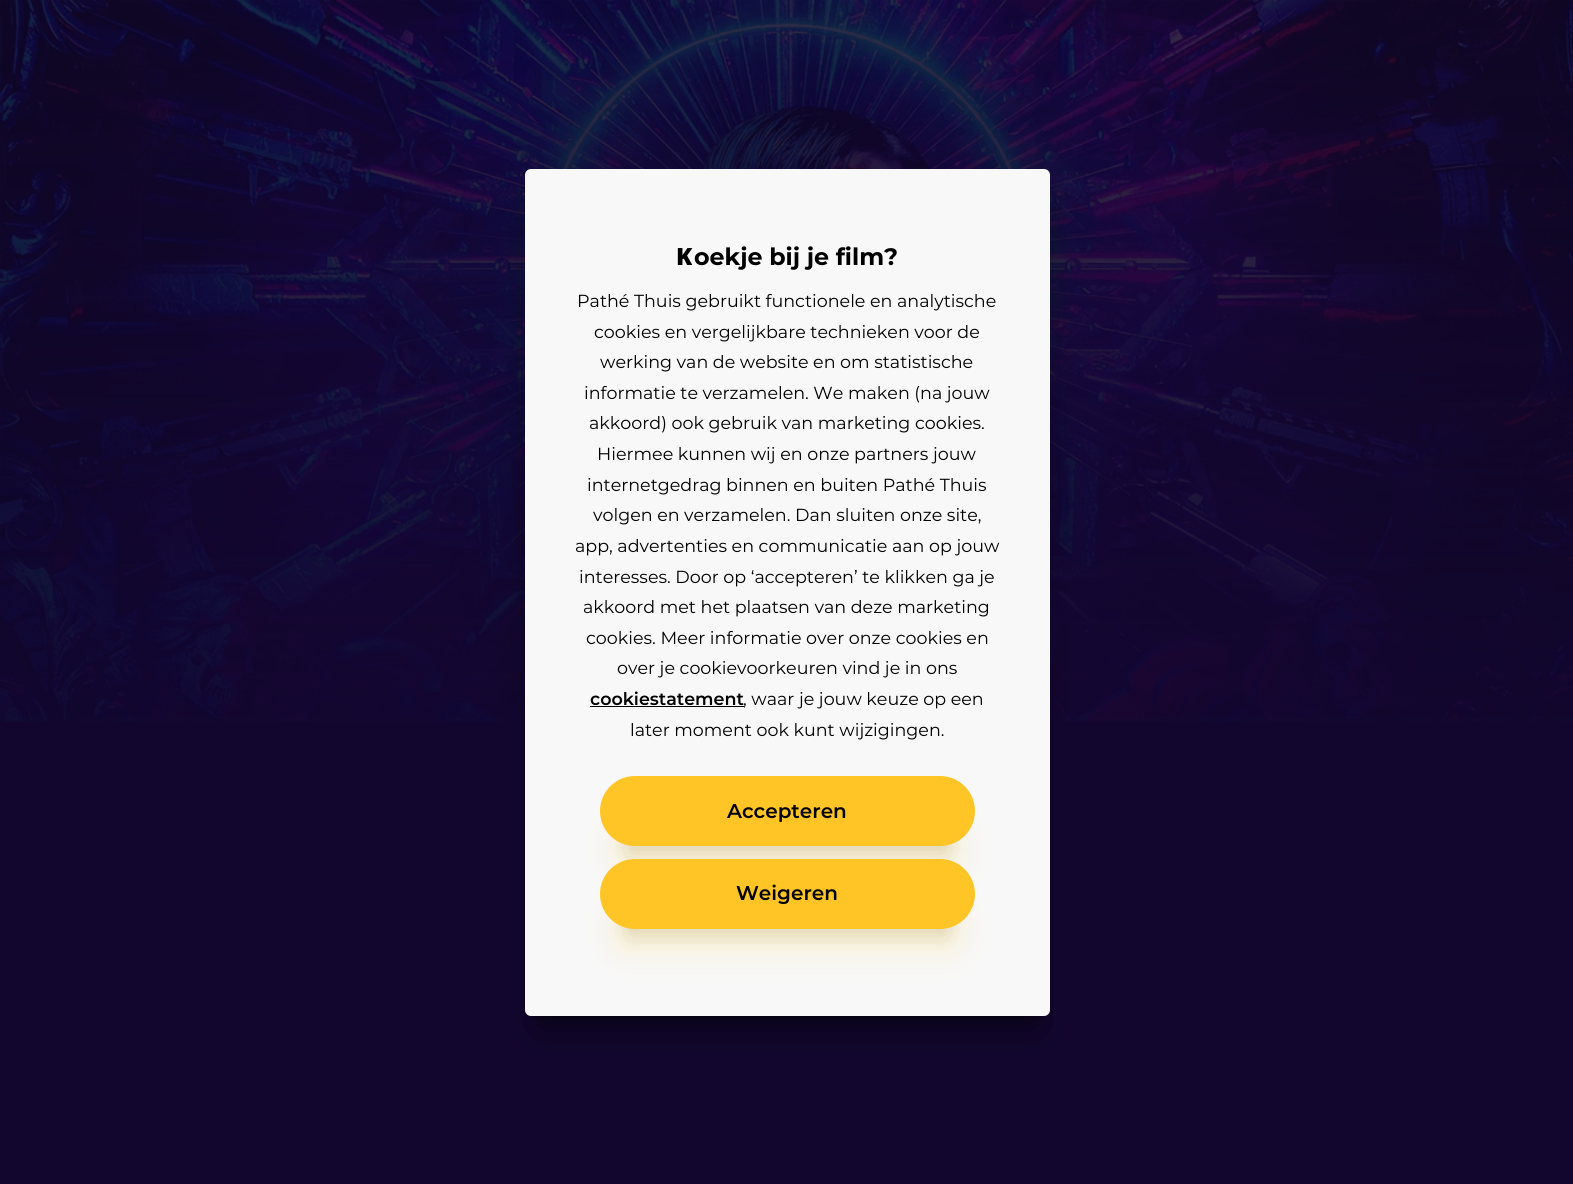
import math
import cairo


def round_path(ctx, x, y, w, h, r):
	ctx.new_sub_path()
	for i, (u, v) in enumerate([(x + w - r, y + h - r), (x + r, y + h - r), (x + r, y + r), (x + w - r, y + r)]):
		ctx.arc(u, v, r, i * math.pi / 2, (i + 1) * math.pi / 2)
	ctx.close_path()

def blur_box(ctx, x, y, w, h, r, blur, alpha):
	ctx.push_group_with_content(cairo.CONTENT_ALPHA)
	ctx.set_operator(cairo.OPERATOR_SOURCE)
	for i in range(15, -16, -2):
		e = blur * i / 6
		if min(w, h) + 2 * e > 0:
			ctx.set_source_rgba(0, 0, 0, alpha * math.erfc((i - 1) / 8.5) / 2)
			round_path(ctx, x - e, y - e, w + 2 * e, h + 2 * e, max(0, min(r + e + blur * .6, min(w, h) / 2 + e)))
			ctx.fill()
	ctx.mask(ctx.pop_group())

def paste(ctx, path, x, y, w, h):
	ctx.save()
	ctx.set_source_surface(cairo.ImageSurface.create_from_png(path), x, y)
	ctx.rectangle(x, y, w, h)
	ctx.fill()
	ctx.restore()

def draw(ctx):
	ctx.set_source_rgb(0.071, 0.024, 0.184)
	ctx.paint()
	paste(ctx, 'media/1.png', 0, 0, 1573, 722)
	gradient = cairo.LinearGradient(787, 0, 787, 730)
	gradient.add_color_stop_rgba(0, 0.071, 0.024, 0.184, 0)
	gradient.add_color_stop_rgba(1, 0.071, 0.024, 0.184, 0.75)
	ctx.set_source(gradient)
	ctx.rectangle(0, 59, 1573, 663)
	ctx.fill()
	ctx.set_source_rgb(0, 0, 0)
	blur_box(ctx, 538, 206, 500, 823, 0, 19, 0.5)
	blur_box(ctx, 538, 191, 500, 823, 0, 6, 0.7)
	ctx.set_source_rgb(0.969, 0.969, 0.969)
	round_path(ctx, 525, 169, 525, 847, 6)
	ctx.fill()
	ctx.select_font_face('Noto Sans Black')
	ctx.set_font_size(23.75)
	ctx.set_source_rgb(0, 0, 0)
	ctx.move_to(676, 265)
	ctx.show_text('K')
	ctx.select_font_face('Montserrat', cairo.FONT_SLANT_NORMAL, cairo.FONT_WEIGHT_BOLD)
	ctx.move_to(694, 265)
	ctx.show_text('oekje bij je film?')
	ctx.select_font_face('Montserrat')
	ctx.set_font_size(17.5)
	for x, y, s in [
		(577, 307, 'Pathé Thuis gebruikt functionele en analytische'),
		(594, 338, 'cookies en vergelijkbare technieken voor de'),
		(600, 368, 'werking van de website en om statistische'),
		(584, 399, 'informatie te verzamelen. We maken (na jouw'),
		(589, 429, 'akkoord) ook gebruik van marketing cookies.'),
		(597, 460, 'Hiermee kunnen wij en onze partners jouw'),
		(587, 491, 'internetgedrag binnen en buiten Pathé Thuis'),
		(593, 521, 'volgen en verzamelen. Dan sluiten onze site,'),
		(575, 552, 'app, advertenties en communicatie aan op jouw'),
		(579, 583, 'interesses. Door op ‘accepteren’ te klikken ga je'),
		(583, 613, 'akkoord met het plaatsen van deze marketing'),
		(586, 644, 'cookies. Meer informatie over onze cookies en'),
		(617, 674, 'over je cookievoorkeuren vind je in ons'),
	]:
		ctx.move_to(x, y)
		ctx.show_text(s)
	ctx.select_font_face('Montserrat SemiBold')
	ctx.move_to(590, 705)
	ctx.show_text('cookiestatement')
	ctx.rectangle(590, 706, 154, 1)
	ctx.fill()
	ctx.select_font_face('Montserrat')
	ctx.move_to(743, 705)
	ctx.show_text(', waar je jouw keuze op een')
	ctx.move_to(630, 736)
	ctx.show_text('later moment ook kunt wijzigingen.')
	ctx.set_source_rgb(1, 0.769, 0.149)
	blur_box(ctx, 625, 839, 325, 20, 10, 19, 0.3)
	ctx.set_source_rgb(0, 0, 0)
	blur_box(ctx, 625, 833, 325, 20, 10, 9.5, 0.1)
	ctx.set_source_rgb(1, 0.769, 0.149)
	round_path(ctx, 600, 776, 375, 70, 35)
	ctx.fill()
	ctx.select_font_face('Montserrat SemiBold')
	ctx.set_font_size(20)
	ctx.set_source_rgb(0, 0, 0)
	ctx.move_to(727, 818)
	ctx.show_text('Accepteren')
	ctx.set_source_rgb(1, 0.769, 0.149)
	blur_box(ctx, 625, 921, 325, 20, 10, 19, 0.3)
	ctx.set_source_rgb(0, 0, 0)
	blur_box(ctx, 625, 915, 325, 20, 10, 9.5, 0.1)
	ctx.set_source_rgb(1, 0.769, 0.149)
	round_path(ctx, 600, 859, 375, 70, 35)
	ctx.fill()
	ctx.set_source_rgb(0, 0, 0)
	ctx.move_to(736, 900)
	ctx.show_text('Weigeren')


surface = cairo.ImageSurface(cairo.FORMAT_RGB24, 1573, 1184)
ctx = cairo.Context(surface)
options = cairo.FontOptions()
options.set_hint_metrics(cairo.HINT_METRICS_OFF)
options.set_hint_style(cairo.HINT_STYLE_NONE)
ctx.set_font_options(options)
ctx.set_miter_limit(4)
draw(ctx)
surface.write_to_png('image.png')
